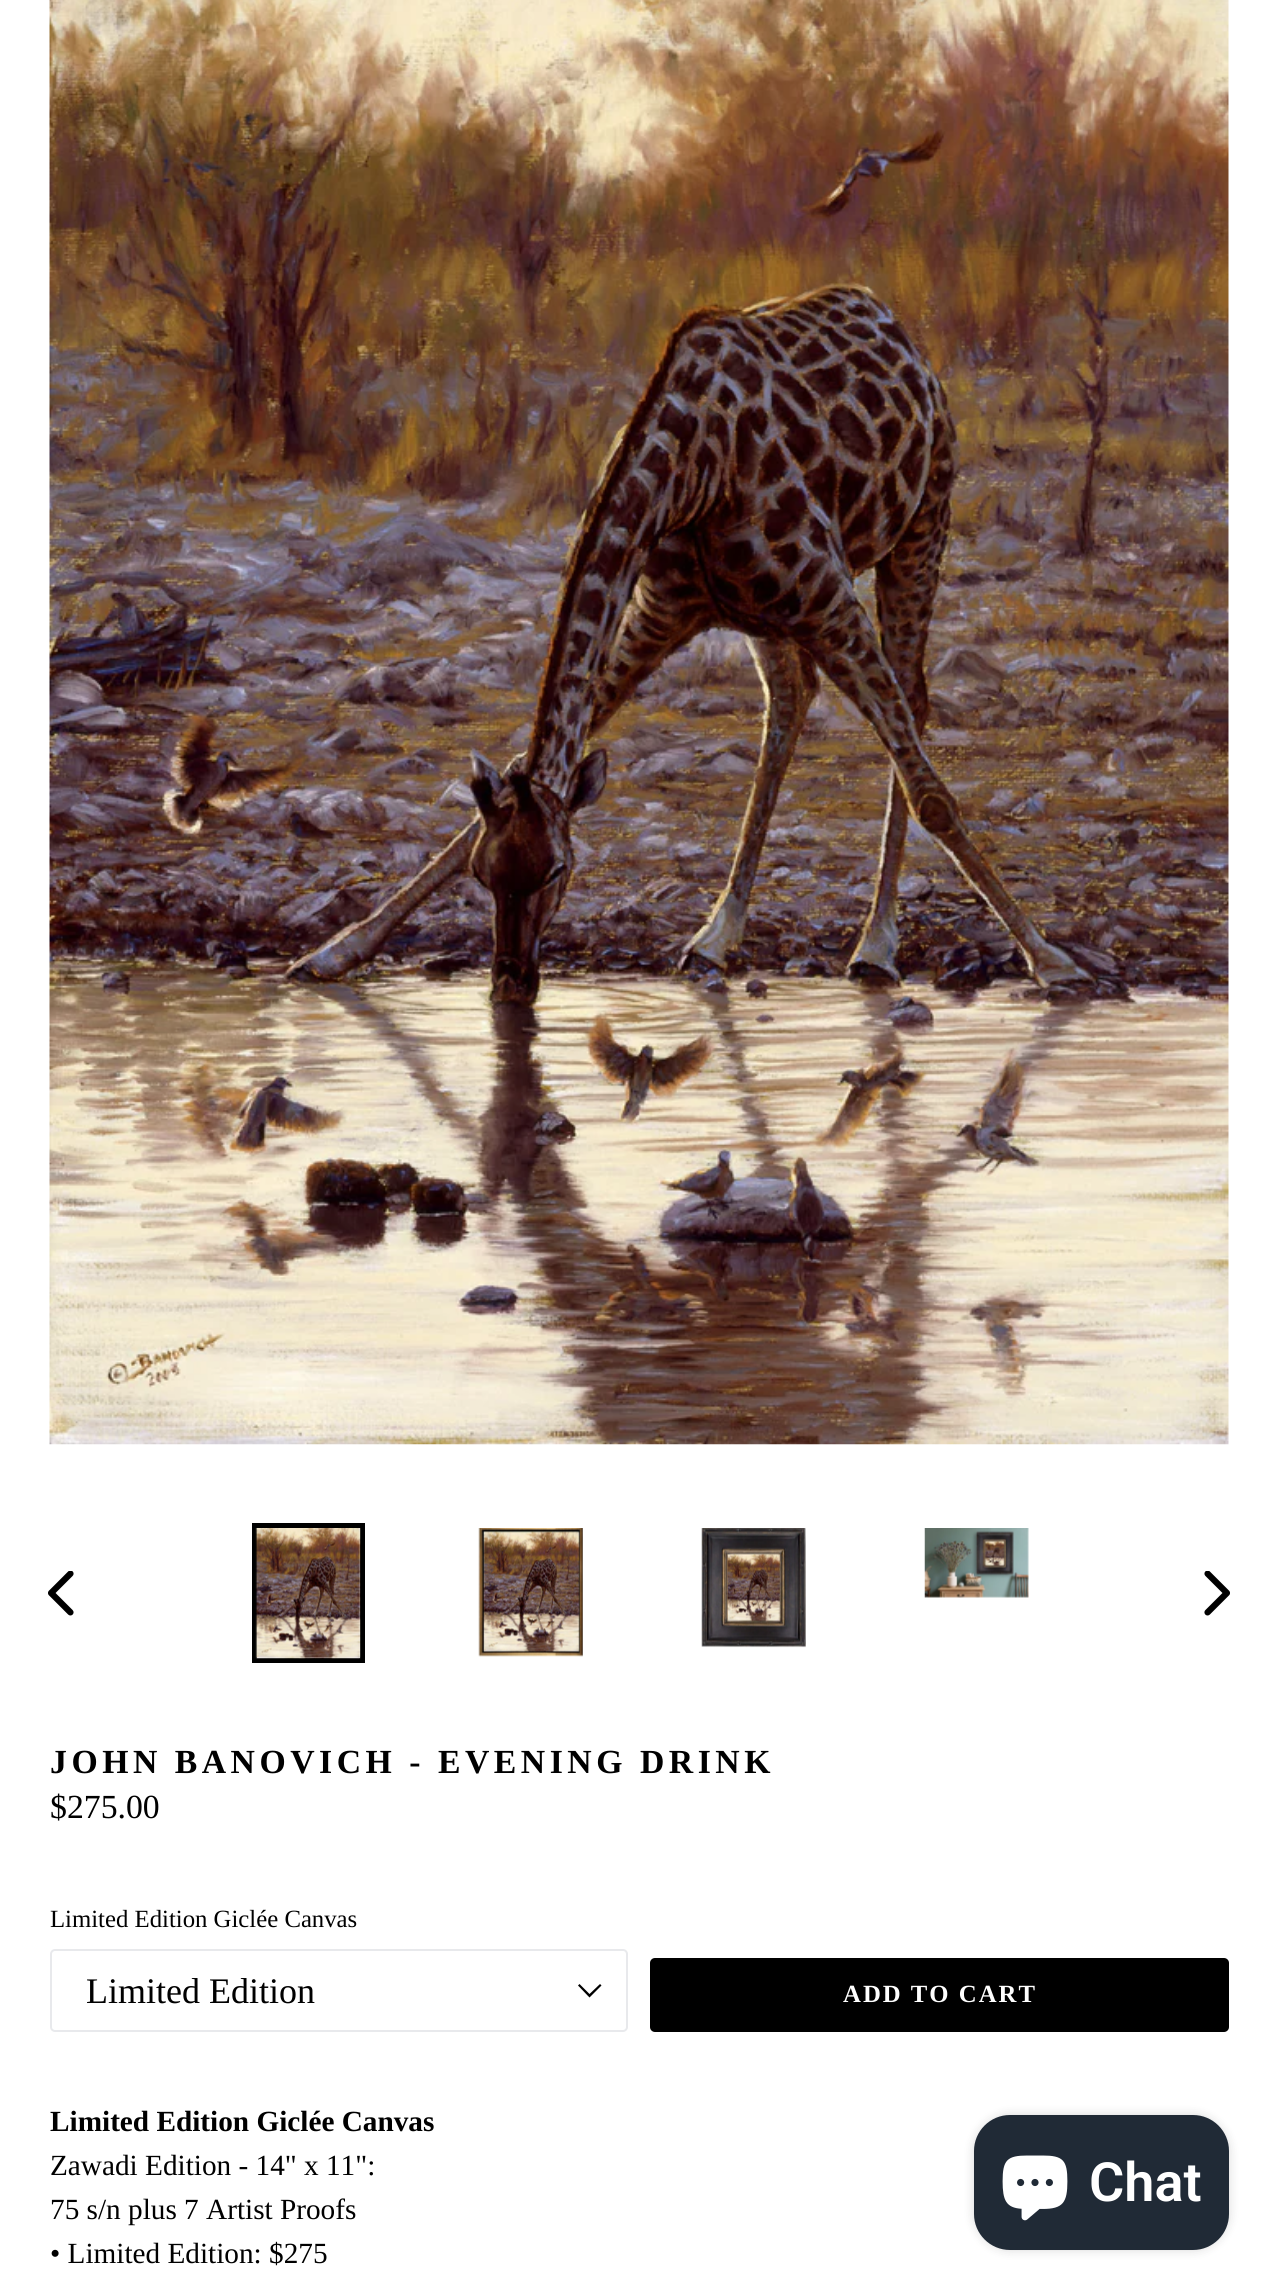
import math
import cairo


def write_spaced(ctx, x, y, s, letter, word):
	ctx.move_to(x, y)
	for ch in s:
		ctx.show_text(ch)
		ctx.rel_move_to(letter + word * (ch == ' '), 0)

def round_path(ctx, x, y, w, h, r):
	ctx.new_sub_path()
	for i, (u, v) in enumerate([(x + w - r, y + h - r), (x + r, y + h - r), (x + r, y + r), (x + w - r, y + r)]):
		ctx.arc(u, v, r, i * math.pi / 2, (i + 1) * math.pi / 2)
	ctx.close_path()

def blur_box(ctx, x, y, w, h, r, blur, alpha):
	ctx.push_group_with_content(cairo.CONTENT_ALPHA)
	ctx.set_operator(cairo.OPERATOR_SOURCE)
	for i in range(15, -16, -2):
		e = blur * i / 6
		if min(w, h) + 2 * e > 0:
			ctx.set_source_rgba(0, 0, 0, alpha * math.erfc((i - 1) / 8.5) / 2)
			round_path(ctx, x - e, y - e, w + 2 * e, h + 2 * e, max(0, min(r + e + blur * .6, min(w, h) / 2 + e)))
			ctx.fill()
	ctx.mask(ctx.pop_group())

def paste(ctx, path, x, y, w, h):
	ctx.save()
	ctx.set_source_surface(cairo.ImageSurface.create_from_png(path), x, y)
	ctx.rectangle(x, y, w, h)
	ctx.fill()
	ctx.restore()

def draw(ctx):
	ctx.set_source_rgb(1, 1, 1)
	ctx.paint()
	paste(ctx, 'media/1.png', 49, 0, 1180, 1445)
	paste(ctx, 'media/2.png', 48, 1571, 26, 45)
	ctx.rectangle(254.5, 1525.5, 108, 135)
	ctx.set_source_rgb(0, 0, 0)
	ctx.set_line_width(5)
	ctx.stroke()
	paste(ctx, 'media/3.png', 255, 1528, 106, 131)
	paste(ctx, 'media/4.png', 478, 1528, 105, 129)
	paste(ctx, 'media/5.png', 701, 1528, 105, 120)
	paste(ctx, 'media/6.png', 924, 1528, 105, 70)
	paste(ctx, 'media/7.png', 1204, 1571, 26, 45)
	ctx.select_font_face('Liberation Serif', cairo.FONT_SLANT_NORMAL, cairo.FONT_WEIGHT_BOLD)
	ctx.set_font_size(33.75)
	write_spaced(ctx, 50, 1773, 'JOHN BANOVICH - EVENING DRINK', 4.5, 0)
	ctx.select_font_face('Liberation Serif')
	ctx.move_to(50, 1818)
	ctx.show_text('$275.00')
	ctx.set_font_size(24.75)
	ctx.move_to(50, 1927)
	ctx.show_text('Limited Edition Giclée Canvas')
	ctx.new_path()
	ctx.move_to(589.5, 1997.5)
	ctx.line_to(578, 1985.5)
	ctx.line_to(579.5, 1984)
	ctx.line_to(589.5, 1994)
	ctx.line_to(600, 1984)
	ctx.line_to(601.5, 1985.5)
	ctx.close_path()
	ctx.fill()
	round_path(ctx, 51, 1950, 576, 81, 4)
	ctx.set_source_rgb(0.91, 0.914, 0.922)
	ctx.set_line_width(2)
	ctx.stroke()
	ctx.set_font_size(36)
	ctx.set_source_rgb(0, 0, 0)
	ctx.move_to(86, 2003)
	ctx.show_text('Limited Edition')
	round_path(ctx, 650, 1958, 579, 74, 5)
	ctx.fill()
	ctx.select_font_face('Liberation Serif', cairo.FONT_SLANT_NORMAL, cairo.FONT_WEIGHT_BOLD)
	ctx.set_font_size(24.75)
	ctx.set_source_rgb(1, 1, 1)
	write_spaced(ctx, 843, 2002, 'ADD TO CART', 2, 0)
	ctx.set_font_size(29.25)
	ctx.set_source_rgb(0, 0, 0)
	ctx.move_to(50, 2131)
	ctx.show_text('Limited Edition Giclée Canvas')
	ctx.select_font_face('Liberation Serif')
	for x, y, s in [
		(50, 2175, 'Zawadi Edition - 14" x 11":'),
		(50, 2219, '75 s/n plus 7 Artist Proofs'),
		(50, 2263, '• Limited Edition: $275'),
	]:
		ctx.move_to(x, y)
		ctx.show_text(s)
	ctx.set_source_rgb(0, 0, 0)
	blur_box(ctx, 974, 2115, 255, 135, 36, 5.5, 0.15)
	ctx.set_source_rgb(0.125, 0.165, 0.212)
	round_path(ctx, 974, 2115, 255, 135, 36)
	ctx.fill()
	paste(ctx, 'media/8.png', 1002, 2155, 66, 66)
	ctx.select_font_face('Roboto SemiBold')
	ctx.set_font_size(54)
	ctx.set_source_rgb(1, 1, 1)
	ctx.move_to(1089, 2201)
	ctx.show_text('Chat')


surface = cairo.ImageSurface(cairo.FORMAT_RGB24, 1278, 2296)
ctx = cairo.Context(surface)
options = cairo.FontOptions()
options.set_hint_metrics(cairo.HINT_METRICS_OFF)
options.set_hint_style(cairo.HINT_STYLE_NONE)
ctx.set_font_options(options)
ctx.set_miter_limit(4)
draw(ctx)
surface.write_to_png('image.png')
